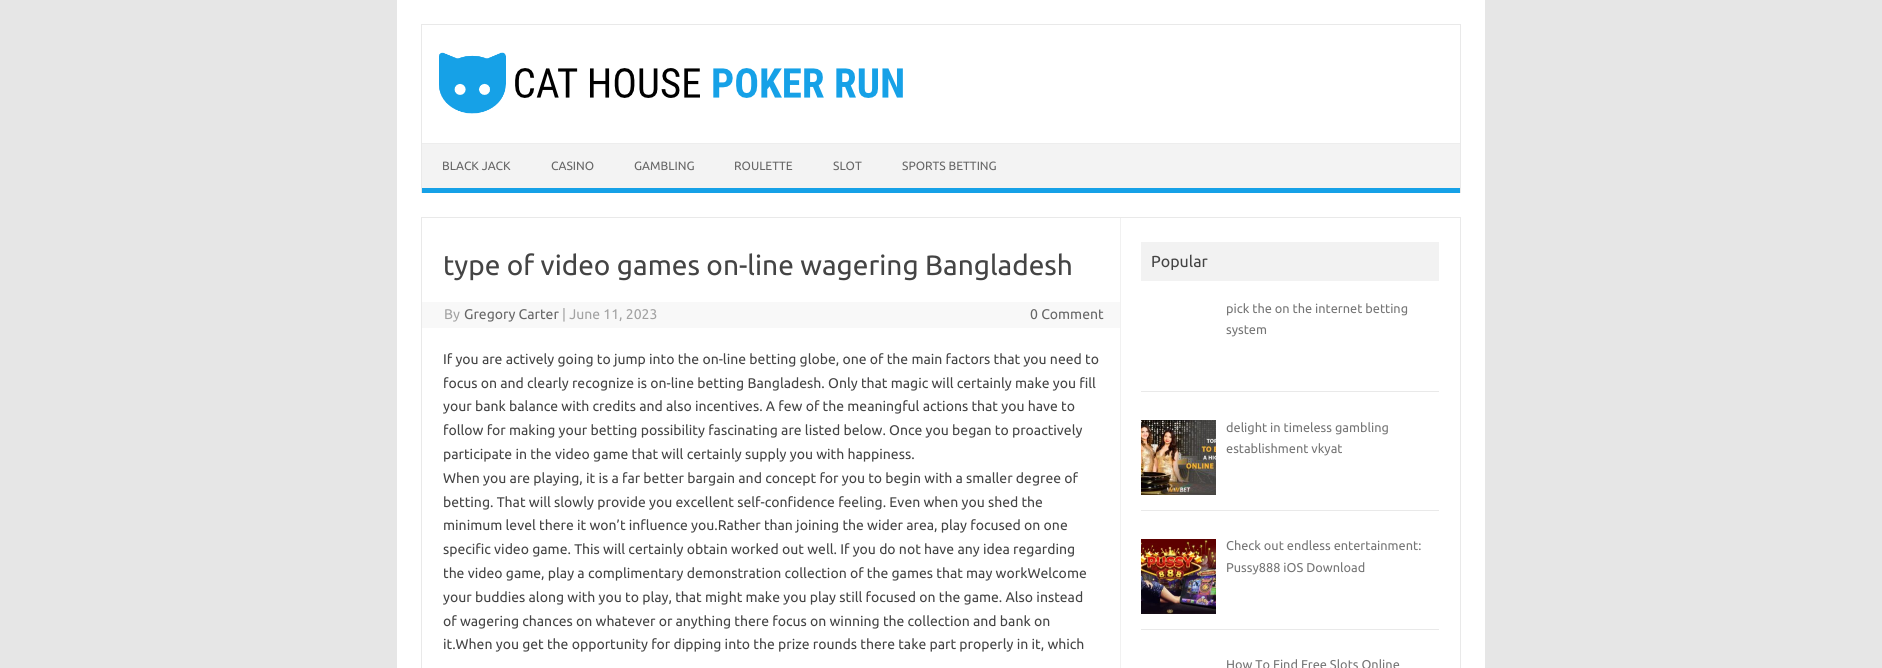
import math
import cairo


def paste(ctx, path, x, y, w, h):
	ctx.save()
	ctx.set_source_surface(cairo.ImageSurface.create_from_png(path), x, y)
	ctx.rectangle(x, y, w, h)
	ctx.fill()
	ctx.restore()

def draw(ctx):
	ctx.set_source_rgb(0.902, 0.902, 0.902)
	ctx.paint()
	ctx.set_source_rgb(1, 1, 1)
	ctx.rectangle(397, 0, 1088, 668)
	ctx.fill()
	ctx.set_source_rgb(0.914, 0.914, 0.914)
	ctx.rectangle(421, 24, 1040, 1)
	ctx.rectangle(1460, 24, 1, 169)
	ctx.rectangle(421, 24, 1, 169)
	ctx.fill()
	paste(ctx, 'media/1.png', 439, 52, 464, 62)
	ctx.set_source_rgb(0.953, 0.953, 0.953)
	ctx.rectangle(422, 144, 1038, 44)
	ctx.fill()
	ctx.set_source_rgb(0.929, 0.929, 0.929)
	ctx.rectangle(422, 143, 1038, 1)
	ctx.fill()
	ctx.set_source_rgb(0.086, 0.631, 0.906)
	ctx.rectangle(422, 188, 1038, 5)
	ctx.fill()
	ctx.select_font_face('Ubuntu')
	ctx.set_font_size(12)
	ctx.set_source_rgb(0.4, 0.4, 0.4)
	for x, y, s in [
		(442, 170, 'BLACK JACK'),
		(551, 170, 'CASINO'),
		(634, 170, 'GAMBLING'),
		(734, 170, 'ROULETTE'),
		(833, 170, 'SLOT'),
		(902, 170, 'SPORTS BETTING'),
	]:
		ctx.move_to(x, y)
		ctx.show_text(s)
	ctx.rectangle(421.5, 217.5, 1039, 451)
	ctx.set_source_rgb(0.914, 0.914, 0.914)
	ctx.set_line_width(1)
	ctx.stroke()
	ctx.set_source_rgb(0.945, 0.945, 0.945)
	ctx.rectangle(1120, 218, 1, 450)
	ctx.fill()
	ctx.set_font_size(28)
	ctx.set_source_rgb(0.267, 0.267, 0.267)
	ctx.move_to(443, 275)
	ctx.show_text('type of video games on-line wagering Bangladesh')
	ctx.set_source_rgb(0.969, 0.969, 0.969)
	ctx.rectangle(422, 302, 698, 26)
	ctx.fill()
	ctx.set_font_size(14)
	ctx.set_source_rgb(0.635, 0.635, 0.635)
	ctx.move_to(444, 319)
	ctx.show_text('By')
	ctx.set_source_rgb(0.4, 0.4, 0.4)
	ctx.move_to(464, 319)
	ctx.show_text('Gregory Carter')
	ctx.set_source_rgb(0.635, 0.635, 0.635)
	ctx.move_to(562, 319)
	ctx.show_text('| June 11, 2023')
	ctx.set_source_rgb(0.4, 0.4, 0.4)
	ctx.move_to(1030, 319)
	ctx.show_text('0 Comment')
	ctx.set_source_rgb(0.267, 0.267, 0.267)
	for x, y, s in [
		(443, 364, 'If you are actively going to jump into the on-line betting globe, one of the main factors that you need to'),
		(443, 388, 'focus on and clearly recognize is on-line betting Bangladesh. Only that magic will certainly make you fill'),
		(443, 411, 'your bank balance with credits and also incentives. A few of the meaningful actions that you have to'),
		(443, 435, 'follow for making your betting possibility fascinating are listed below. Once you began to proactively'),
		(443, 459, 'participate in the video game that will certainly supply you with happiness.'),
		(443, 483, 'When you are playing, it is a far better bargain and concept for you to begin with a smaller degree of'),
		(443, 507, 'betting. That will slowly provide you excellent self-confidence feeling. Even when you shed the'),
		(443, 530, 'minimum level there it won’t influence you.Rather than joining the wider area, play focused on one'),
		(443, 554, 'specific video game. This will certainly obtain worked out well. If you do not have any idea regarding'),
		(443, 578, 'the video game, play a complimentary demonstration collection of the games that may workWelcome'),
		(443, 602, 'your buddies along with you to play, that might make you play still focused on the game. Also instead'),
		(443, 626, 'of wagering chances on whatever or anything there focus on winning the collection and bank on'),
		(443, 649, 'it.When you get the opportunity for dipping into the prize rounds there take part properly in it, which'),
	]:
		ctx.move_to(x, y)
		ctx.show_text(s)
	ctx.set_source_rgb(0.949, 0.949, 0.949)
	ctx.rectangle(1141, 242, 298, 39)
	ctx.fill()
	ctx.set_font_size(16)
	ctx.set_source_rgb(0.267, 0.267, 0.267)
	ctx.move_to(1151, 267)
	ctx.show_text('Popular')
	ctx.set_source_rgb(0.914, 0.914, 0.914)
	ctx.rectangle(1141, 391, 298, 1)
	ctx.fill()
	ctx.set_font_size(12.75)
	ctx.set_source_rgb(0.459, 0.459, 0.459)
	ctx.move_to(1226, 313)
	ctx.show_text('pick the on the internet betting')
	ctx.move_to(1226, 334)
	ctx.show_text('system')
	ctx.set_source_rgb(0.914, 0.914, 0.914)
	ctx.rectangle(1141, 510, 298, 1)
	ctx.fill()
	paste(ctx, 'media/2.png', 1141, 420, 75, 75)
	ctx.set_source_rgb(0.459, 0.459, 0.459)
	ctx.move_to(1226, 432)
	ctx.show_text('delight in timeless gambling')
	ctx.move_to(1226, 453)
	ctx.show_text('establishment vkyat')
	ctx.set_source_rgb(0.914, 0.914, 0.914)
	ctx.rectangle(1141, 629, 298, 1)
	ctx.fill()
	paste(ctx, 'media/3.png', 1141, 539, 75, 75)
	ctx.set_source_rgb(0.459, 0.459, 0.459)
	for x, y, s in [
		(1226, 550, 'Check out endless entertainment:'),
		(1226, 572, 'Pussy888 iOS Download'),
		(1226, 669, 'How To Find Free Slots Online'),
	]:
		ctx.move_to(x, y)
		ctx.show_text(s)


surface = cairo.ImageSurface(cairo.FORMAT_RGB24, 1882, 668)
ctx = cairo.Context(surface)
options = cairo.FontOptions()
options.set_hint_metrics(cairo.HINT_METRICS_OFF)
options.set_hint_style(cairo.HINT_STYLE_NONE)
ctx.set_font_options(options)
ctx.set_miter_limit(4)
draw(ctx)
surface.write_to_png('image.png')
